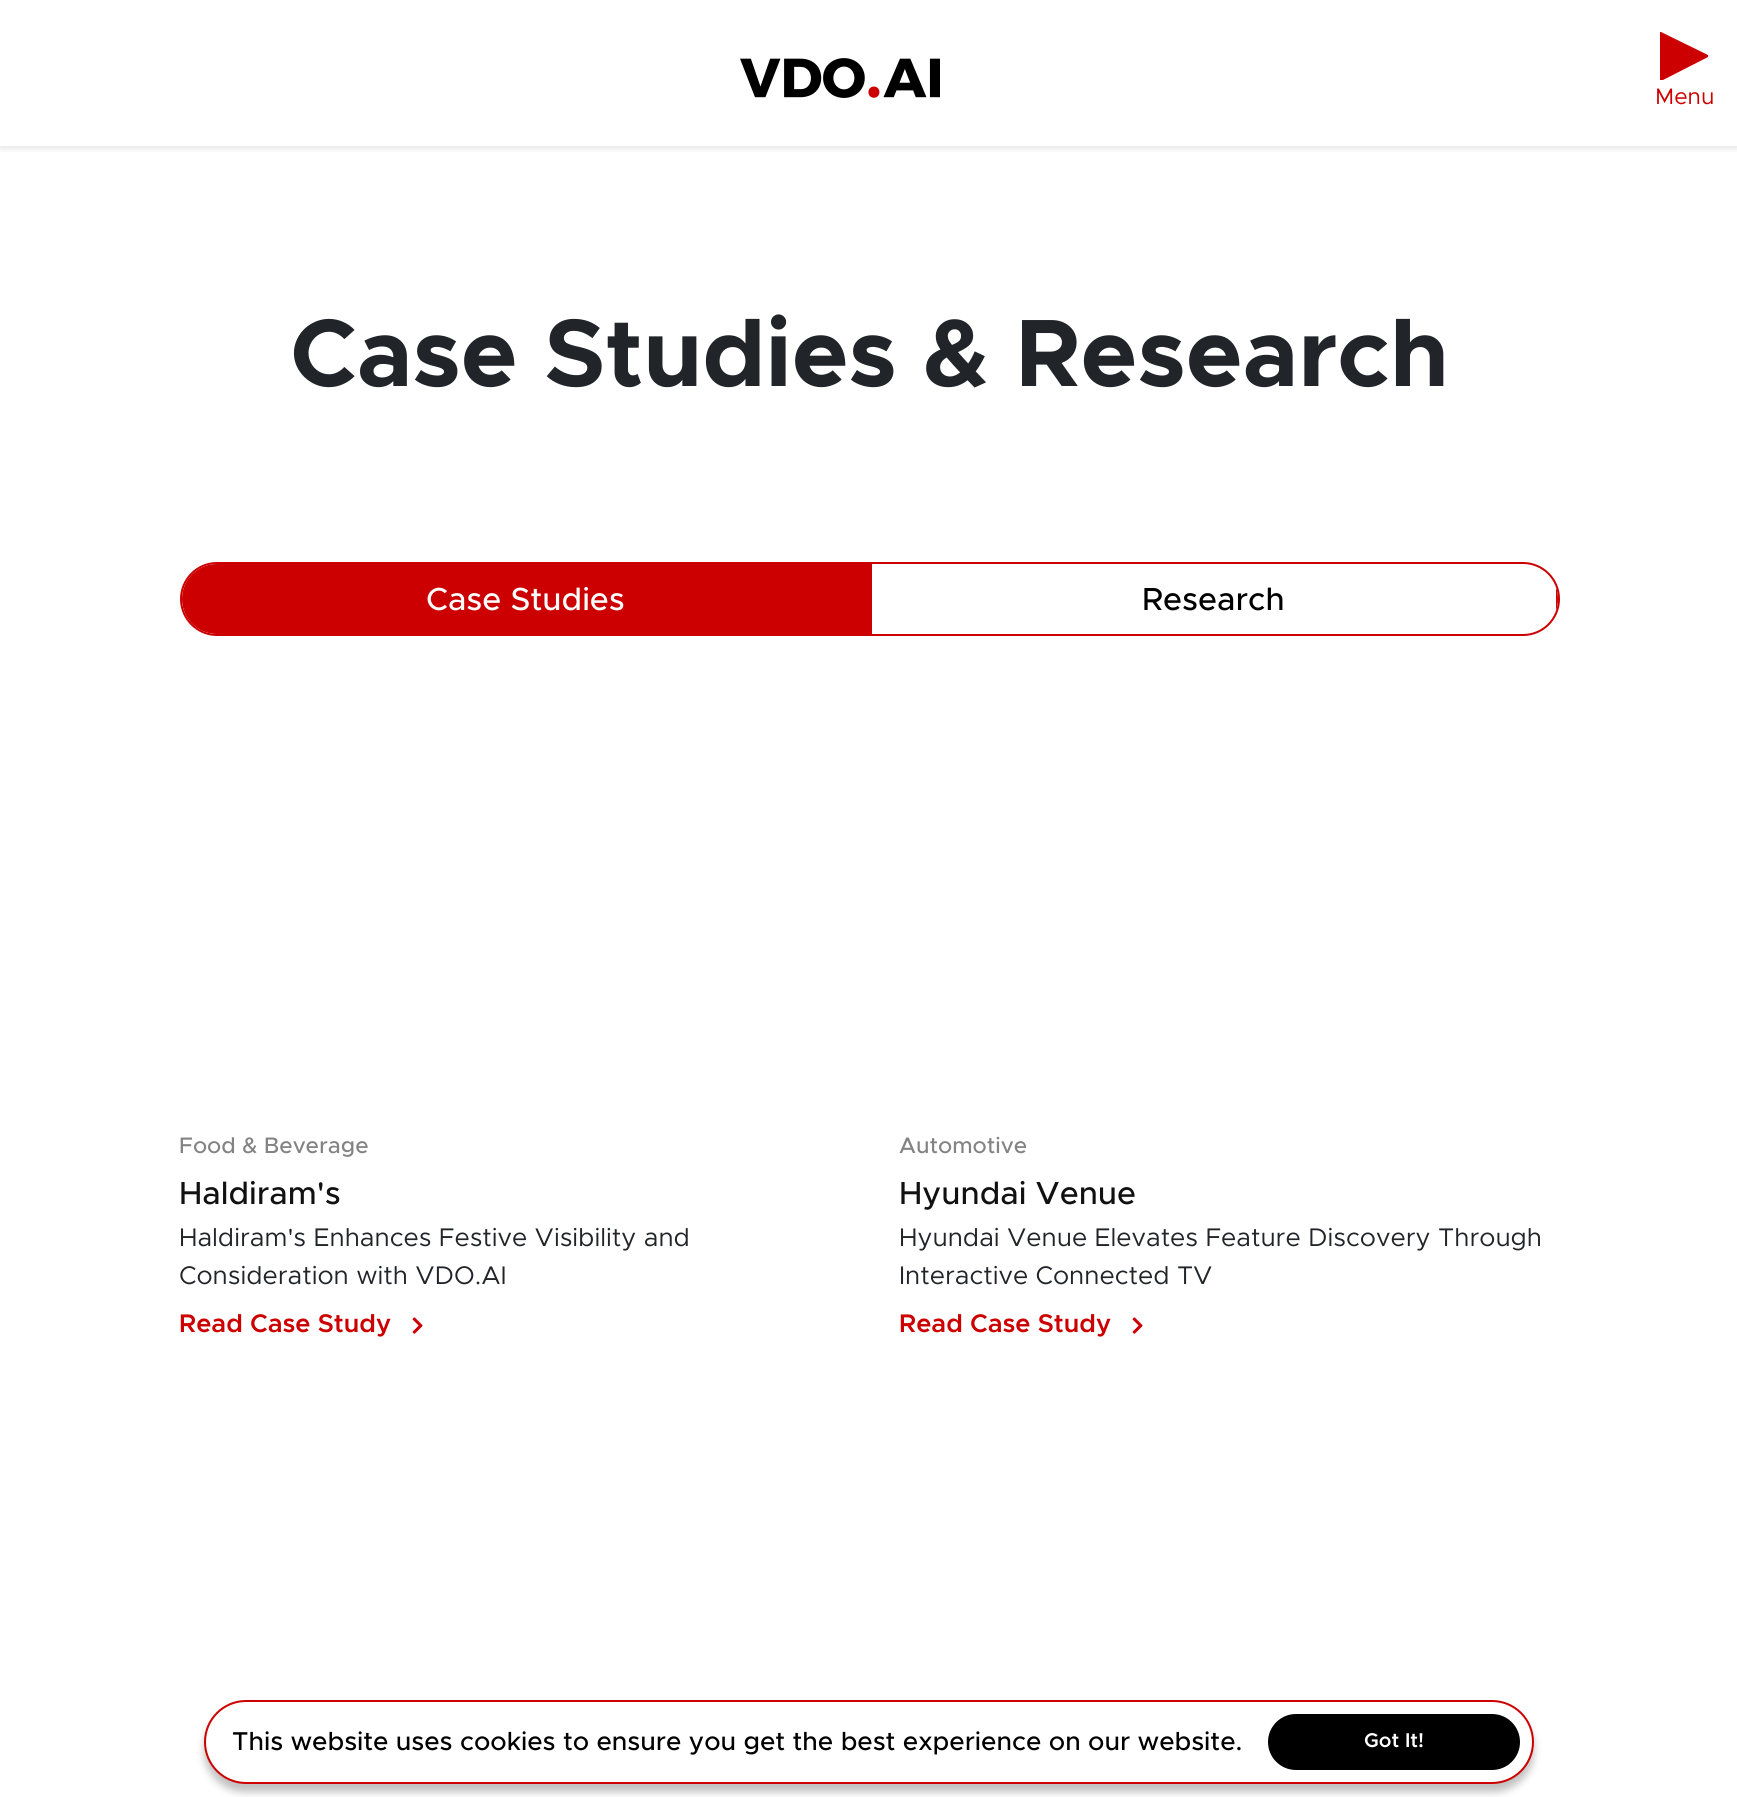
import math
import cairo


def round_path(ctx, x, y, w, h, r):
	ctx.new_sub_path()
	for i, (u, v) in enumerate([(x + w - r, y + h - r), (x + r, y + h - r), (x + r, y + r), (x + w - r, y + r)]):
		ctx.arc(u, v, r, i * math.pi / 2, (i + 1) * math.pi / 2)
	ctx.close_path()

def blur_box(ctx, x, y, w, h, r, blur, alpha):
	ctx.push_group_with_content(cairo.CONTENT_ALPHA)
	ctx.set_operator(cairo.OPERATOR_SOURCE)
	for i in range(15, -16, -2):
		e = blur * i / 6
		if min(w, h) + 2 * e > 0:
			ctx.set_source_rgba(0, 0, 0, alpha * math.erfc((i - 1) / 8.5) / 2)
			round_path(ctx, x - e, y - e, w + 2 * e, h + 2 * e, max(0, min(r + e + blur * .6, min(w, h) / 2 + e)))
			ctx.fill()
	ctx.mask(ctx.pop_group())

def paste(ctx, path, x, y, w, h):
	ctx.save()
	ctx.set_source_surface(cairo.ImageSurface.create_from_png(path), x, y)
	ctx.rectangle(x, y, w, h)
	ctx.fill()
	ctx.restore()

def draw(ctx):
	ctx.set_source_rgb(1, 1, 1)
	ctx.paint()
	ctx.save()
	ctx.rectangle(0, 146, 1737, 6)
	ctx.clip()
	ctx.set_source_rgb(0, 0, 0)
	blur_box(ctx, 0, 2, 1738, 146, 0, 4, 0.12)
	ctx.restore()
	paste(ctx, 'media/1.png', 740, 58, 200, 40)
	ctx.set_source_rgb(0.8, 0, 0)
	ctx.rectangle(1660, 32, 48, 48)
	ctx.fill()
	ctx.save()
	ctx.rectangle(1660, 32, 48, 48)
	ctx.clip()
	ctx.set_source_rgb(1, 1, 1)
	ctx.new_path()
	ctx.move_to(1661, 32)
	ctx.line_to(1709, 32)
	ctx.line_to(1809, 81)
	ctx.line_to(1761, 81)
	ctx.close_path()
	ctx.move_to(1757, 32)
	ctx.line_to(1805, 32)
	ctx.line_to(1709, 81)
	ctx.line_to(1661, 81)
	ctx.close_path()
	ctx.fill()
	ctx.restore()
	ctx.select_font_face('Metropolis')
	ctx.set_font_size(22.5)
	ctx.move_to(1655, 104)
	ctx.show_text('Menu')
	ctx.select_font_face('Metropolis', cairo.FONT_SLANT_NORMAL, cairo.FONT_WEIGHT_BOLD)
	ctx.set_font_size(96)
	ctx.set_source_rgb(0.129, 0.145, 0.161)
	ctx.move_to(290, 386)
	ctx.show_text('Case Studies & Research')
	round_path(ctx, 181, 563, 1378, 72, 36)
	ctx.set_source_rgb(0.8, 0, 0)
	ctx.stroke()
	ctx.new_path()
	ctx.move_to(217, 564)
	ctx.line_to(870, 564)
	ctx.line_to(870, 634)
	ctx.line_to(217, 634)
	ctx.curve_to(197.5, 634, 182, 618.5, 182, 599)
	ctx.curve_to(182, 579.5, 197.5, 564, 217, 564)
	ctx.close_path()
	ctx.fill()
	ctx.select_font_face('Metropolis Medium')
	ctx.set_font_size(32)
	ctx.set_source_rgb(1, 1, 1)
	ctx.move_to(426, 610)
	ctx.show_text('Case Studies')
	ctx.save()
	round_path(ctx, 182, 564, 1376, 70, 35)
	ctx.clip()
	ctx.set_source_rgb(0.8, 0, 0)
	ctx.rectangle(1556, 587, 2, 24)
	ctx.fill()
	ctx.restore()
	ctx.set_source_rgb(0.8, 0, 0)
	ctx.rectangle(870, 564, 2, 70)
	ctx.fill()
	ctx.set_source_rgb(0, 0, 0)
	ctx.move_to(1142, 610)
	ctx.show_text('Research')
	ctx.set_font_size(22.5)
	ctx.set_source_rgb(0.514, 0.514, 0.514)
	ctx.move_to(179, 1153)
	ctx.show_text('Food & Beverage')
	ctx.set_font_size(32)
	ctx.set_source_rgb(0.067, 0.067, 0.067)
	ctx.move_to(179, 1204)
	ctx.show_text('Haldiram\'s')
	ctx.select_font_face('Metropolis')
	ctx.set_font_size(25.6)
	ctx.set_source_rgb(0.129, 0.145, 0.161)
	ctx.move_to(179, 1246)
	ctx.show_text('Haldiram\'s Enhances Festive Visibility and')
	ctx.move_to(179, 1284)
	ctx.show_text('Consideration with VDO.AI')
	ctx.select_font_face('Metropolis SemiBold')
	ctx.set_source_rgb(0.8, 0, 0)
	ctx.move_to(179, 1332)
	ctx.show_text('Read Case Study')
	paste(ctx, 'media/2.png', 412, 1317, 11, 17)
	ctx.select_font_face('Metropolis Medium')
	ctx.set_font_size(22.5)
	ctx.set_source_rgb(0.514, 0.514, 0.514)
	ctx.move_to(899, 1153)
	ctx.show_text('Automotive')
	ctx.set_font_size(32)
	ctx.set_source_rgb(0.067, 0.067, 0.067)
	ctx.move_to(899, 1204)
	ctx.show_text('Hyundai Venue')
	ctx.select_font_face('Metropolis')
	ctx.set_font_size(25.6)
	ctx.set_source_rgb(0.129, 0.145, 0.161)
	ctx.move_to(899, 1246)
	ctx.show_text('Hyundai Venue Elevates Feature Discovery Through')
	ctx.move_to(899, 1284)
	ctx.show_text('Interactive Connected TV')
	ctx.select_font_face('Metropolis SemiBold')
	ctx.set_source_rgb(0.8, 0, 0)
	ctx.move_to(899, 1332)
	ctx.show_text('Read Case Study')
	paste(ctx, 'media/2.png', 1132, 1317, 11, 17)
	ctx.set_source_rgb(0, 0, 0)
	blur_box(ctx, 204, 1708, 1330, 84, 42, 4, 0.25)
	ctx.set_source_rgb(1, 1, 1)
	round_path(ctx, 205, 1701, 1328, 82, 41)
	ctx.fill_preserve()
	ctx.set_source_rgb(0.8, 0, 0)
	ctx.stroke()
	ctx.select_font_face('Metropolis Medium')
	ctx.set_font_size(25.9)
	ctx.set_source_rgb(0, 0, 0)
	ctx.move_to(232, 1750)
	ctx.show_text('This website uses cookies to ensure you get the best experience on our website.')
	round_path(ctx, 1267, 1713, 254, 58, 29)
	ctx.fill_preserve()
	ctx.set_source_rgb(1, 1, 1)
	ctx.stroke()
	ctx.select_font_face('Metropolis SemiBold')
	ctx.set_font_size(20)
	ctx.move_to(1364, 1747)
	ctx.show_text('Got It!')


surface = cairo.ImageSurface(cairo.FORMAT_RGB24, 1737, 1797)
ctx = cairo.Context(surface)
options = cairo.FontOptions()
options.set_hint_metrics(cairo.HINT_METRICS_OFF)
options.set_hint_style(cairo.HINT_STYLE_NONE)
ctx.set_font_options(options)
ctx.set_miter_limit(4)
draw(ctx)
surface.write_to_png('image.png')
